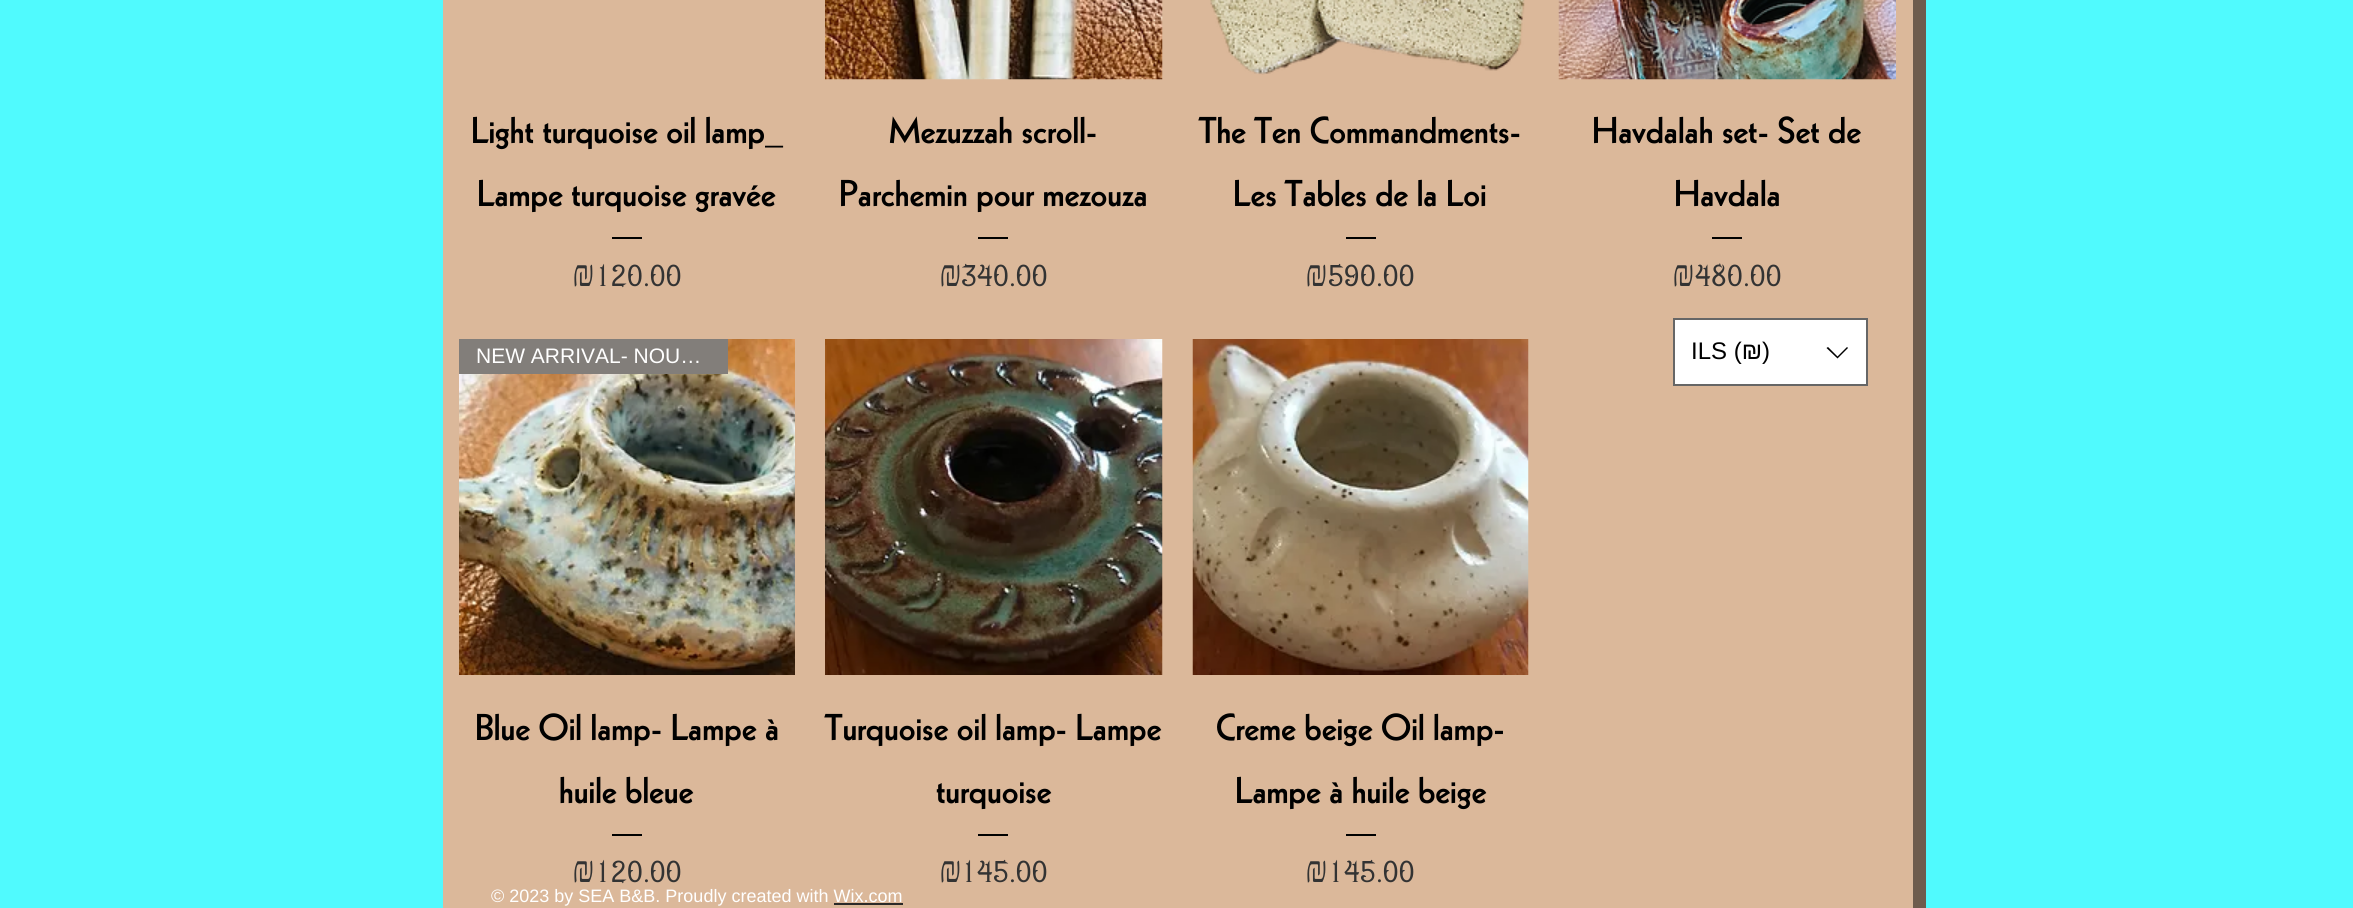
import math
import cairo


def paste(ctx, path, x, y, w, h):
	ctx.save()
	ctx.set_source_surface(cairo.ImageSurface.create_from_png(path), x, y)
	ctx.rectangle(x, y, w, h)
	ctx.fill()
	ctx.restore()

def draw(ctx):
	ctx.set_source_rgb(0.314, 0.98, 0.996)
	ctx.paint()
	ctx.set_source_rgb(0.431, 0.361, 0.302)
	ctx.new_path()
	ctx.move_to(456, 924)
	ctx.curve_to(457, 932, 463, 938, 471, 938)
	ctx.line_to(1911, 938)
	ctx.curve_to(1919, 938, 1926, 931, 1926, 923)
	ctx.line_to(1926, -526)
	ctx.curve_to(1926, -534, 1920, -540, 1912, -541)
	ctx.line_to(1912, 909)
	ctx.curve_to(1912, 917, 1906, 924, 1898, 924)
	ctx.close_path()
	ctx.fill()
	ctx.set_source_rgb(0.859, 0.722, 0.604)
	ctx.rectangle(443, 0, 1470, 908)
	ctx.fill()
	ctx.select_font_face('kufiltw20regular')
	ctx.set_font_size(51)
	ctx.set_source_rgb(0, 0, 0)
	ctx.move_to(471, 143)
	ctx.show_text('Light turquoise oil lamp_')
	ctx.move_to(477, 206)
	ctx.show_text('Lampe turquoise gravée')
	ctx.rectangle(612, 237, 30, 2)
	ctx.fill()
	ctx.select_font_face('Liberation Serif')
	ctx.set_font_size(37.5)
	ctx.set_source_rgb(0.2, 0.2, 0.2)
	ctx.move_to(572, 286)
	ctx.show_text('₪')
	ctx.select_font_face('kufiltw20regular')
	ctx.move_to(595, 286)
	ctx.show_text('120.00')
	paste(ctx, 'media/1.png', 825, 0, 338, 80)
	ctx.set_font_size(51)
	ctx.set_source_rgb(0, 0, 0)
	ctx.move_to(889, 143)
	ctx.show_text('Mezuzzah scroll-')
	ctx.move_to(839, 206)
	ctx.show_text('Parchemin pour mezouza')
	ctx.rectangle(978, 237, 30, 2)
	ctx.fill()
	ctx.select_font_face('Liberation Serif')
	ctx.set_font_size(37.5)
	ctx.set_source_rgb(0.2, 0.2, 0.2)
	ctx.move_to(939, 286)
	ctx.show_text('₪')
	ctx.select_font_face('kufiltw20regular')
	ctx.move_to(961, 286)
	ctx.show_text('340.00')
	paste(ctx, 'media/2.png', 1210, 0, 315, 75)
	ctx.set_font_size(51)
	ctx.set_source_rgb(0, 0, 0)
	ctx.move_to(1199, 143)
	ctx.show_text('The Ten Commandments-')
	ctx.move_to(1233, 206)
	ctx.show_text('Les Tables de la Loi')
	ctx.rectangle(1346, 237, 30, 2)
	ctx.fill()
	ctx.select_font_face('Liberation Serif')
	ctx.set_font_size(37.5)
	ctx.set_source_rgb(0.2, 0.2, 0.2)
	ctx.move_to(1305, 286)
	ctx.show_text('₪')
	ctx.select_font_face('kufiltw20regular')
	ctx.move_to(1328, 286)
	ctx.show_text('590.00')
	paste(ctx, 'media/3.png', 1558, 0, 338, 80)
	ctx.set_font_size(51)
	ctx.set_source_rgb(0, 0, 0)
	ctx.move_to(1592, 143)
	ctx.show_text('Havdalah set- Set de')
	ctx.move_to(1674, 206)
	ctx.show_text('Havdala')
	ctx.rectangle(1712, 237, 30, 2)
	ctx.fill()
	ctx.select_font_face('Liberation Serif')
	ctx.set_font_size(37.5)
	ctx.set_source_rgb(0.2, 0.2, 0.2)
	ctx.move_to(1672, 286)
	ctx.show_text('₪')
	ctx.select_font_face('kufiltw20regular')
	ctx.move_to(1695, 286)
	ctx.show_text('480.00')
	paste(ctx, 'media/4.png', 459, 339, 336, 336)
	ctx.set_source_rgb(0.51, 0.494, 0.478)
	ctx.rectangle(459, 339, 269, 35)
	ctx.fill()
	ctx.select_font_face('Liberation Sans')
	ctx.set_font_size(21)
	ctx.set_source_rgb(1, 1, 1)
	ctx.move_to(476, 363)
	ctx.show_text('NEW ARRIVAL- NOU…')
	ctx.select_font_face('kufiltw20regular')
	ctx.set_font_size(51)
	ctx.set_source_rgb(0, 0, 0)
	ctx.move_to(475, 740)
	ctx.show_text('Blue Oil lamp- Lampe à')
	ctx.move_to(559, 803)
	ctx.show_text('huile bleue')
	ctx.rectangle(612, 834, 30, 2)
	ctx.fill()
	ctx.select_font_face('Liberation Serif')
	ctx.set_font_size(37.5)
	ctx.set_source_rgb(0.2, 0.2, 0.2)
	ctx.move_to(572, 882)
	ctx.show_text('₪')
	ctx.select_font_face('kufiltw20regular')
	ctx.move_to(595, 882)
	ctx.show_text('120.00')
	paste(ctx, 'media/5.png', 825, 339, 338, 336)
	ctx.set_font_size(51)
	ctx.set_source_rgb(0, 0, 0)
	ctx.move_to(825, 740)
	ctx.show_text('Turquoise oil lamp- Lampe')
	ctx.move_to(936, 803)
	ctx.show_text('turquoise')
	ctx.rectangle(978, 834, 30, 2)
	ctx.fill()
	ctx.select_font_face('Liberation Serif')
	ctx.set_font_size(37.5)
	ctx.set_source_rgb(0.2, 0.2, 0.2)
	ctx.move_to(939, 882)
	ctx.show_text('₪')
	ctx.select_font_face('kufiltw20regular')
	ctx.move_to(961, 882)
	ctx.show_text('145.00')
	paste(ctx, 'media/6.png', 1192, 339, 337, 336)
	ctx.set_font_size(51)
	ctx.set_source_rgb(0, 0, 0)
	ctx.move_to(1216, 740)
	ctx.show_text('Creme beige Oil lamp-')
	ctx.move_to(1235, 803)
	ctx.show_text('Lampe à huile beige')
	ctx.rectangle(1346, 834, 30, 2)
	ctx.fill()
	ctx.select_font_face('Liberation Serif')
	ctx.set_font_size(37.5)
	ctx.set_source_rgb(0.2, 0.2, 0.2)
	ctx.move_to(1305, 882)
	ctx.show_text('₪')
	ctx.select_font_face('kufiltw20regular')
	ctx.move_to(1328, 882)
	ctx.show_text('145.00')
	ctx.set_source_rgb(1, 1, 1)
	ctx.rectangle(1674, 319, 193, 66)
	ctx.fill_preserve()
	ctx.set_source_rgb(0.4, 0.4, 0.4)
	ctx.stroke()
	ctx.select_font_face('Liberation Sans')
	ctx.set_font_size(24)
	ctx.set_source_rgb(0, 0, 0)
	ctx.move_to(1691, 359)
	ctx.show_text('ILS (₪)')
	ctx.set_fill_rule(cairo.FILL_RULE_EVEN_ODD)
	ctx.new_path()
	ctx.move_to(1847, 347)
	ctx.line_to(1848, 348)
	ctx.line_to(1837.5, 358.5)
	ctx.line_to(1826.5, 348)
	ctx.line_to(1828, 347)
	ctx.line_to(1837.5, 356.5)
	ctx.close_path()
	ctx.fill()
	ctx.set_font_size(18)
	ctx.set_source_rgb(1, 1, 1)
	ctx.move_to(491, 902)
	ctx.show_text('© 2023 by SEA B&B. Proudly created with Wix.com')
	ctx.set_source_rgb(0.169, 0.165, 0.157)
	ctx.rectangle(834, 903, 69, 2)
	ctx.fill()


surface = cairo.ImageSurface(cairo.FORMAT_RGB24, 2353, 908)
ctx = cairo.Context(surface)
options = cairo.FontOptions()
options.set_hint_metrics(cairo.HINT_METRICS_OFF)
options.set_hint_style(cairo.HINT_STYLE_NONE)
ctx.set_font_options(options)
ctx.set_miter_limit(4)
draw(ctx)
surface.write_to_png('image.png')
